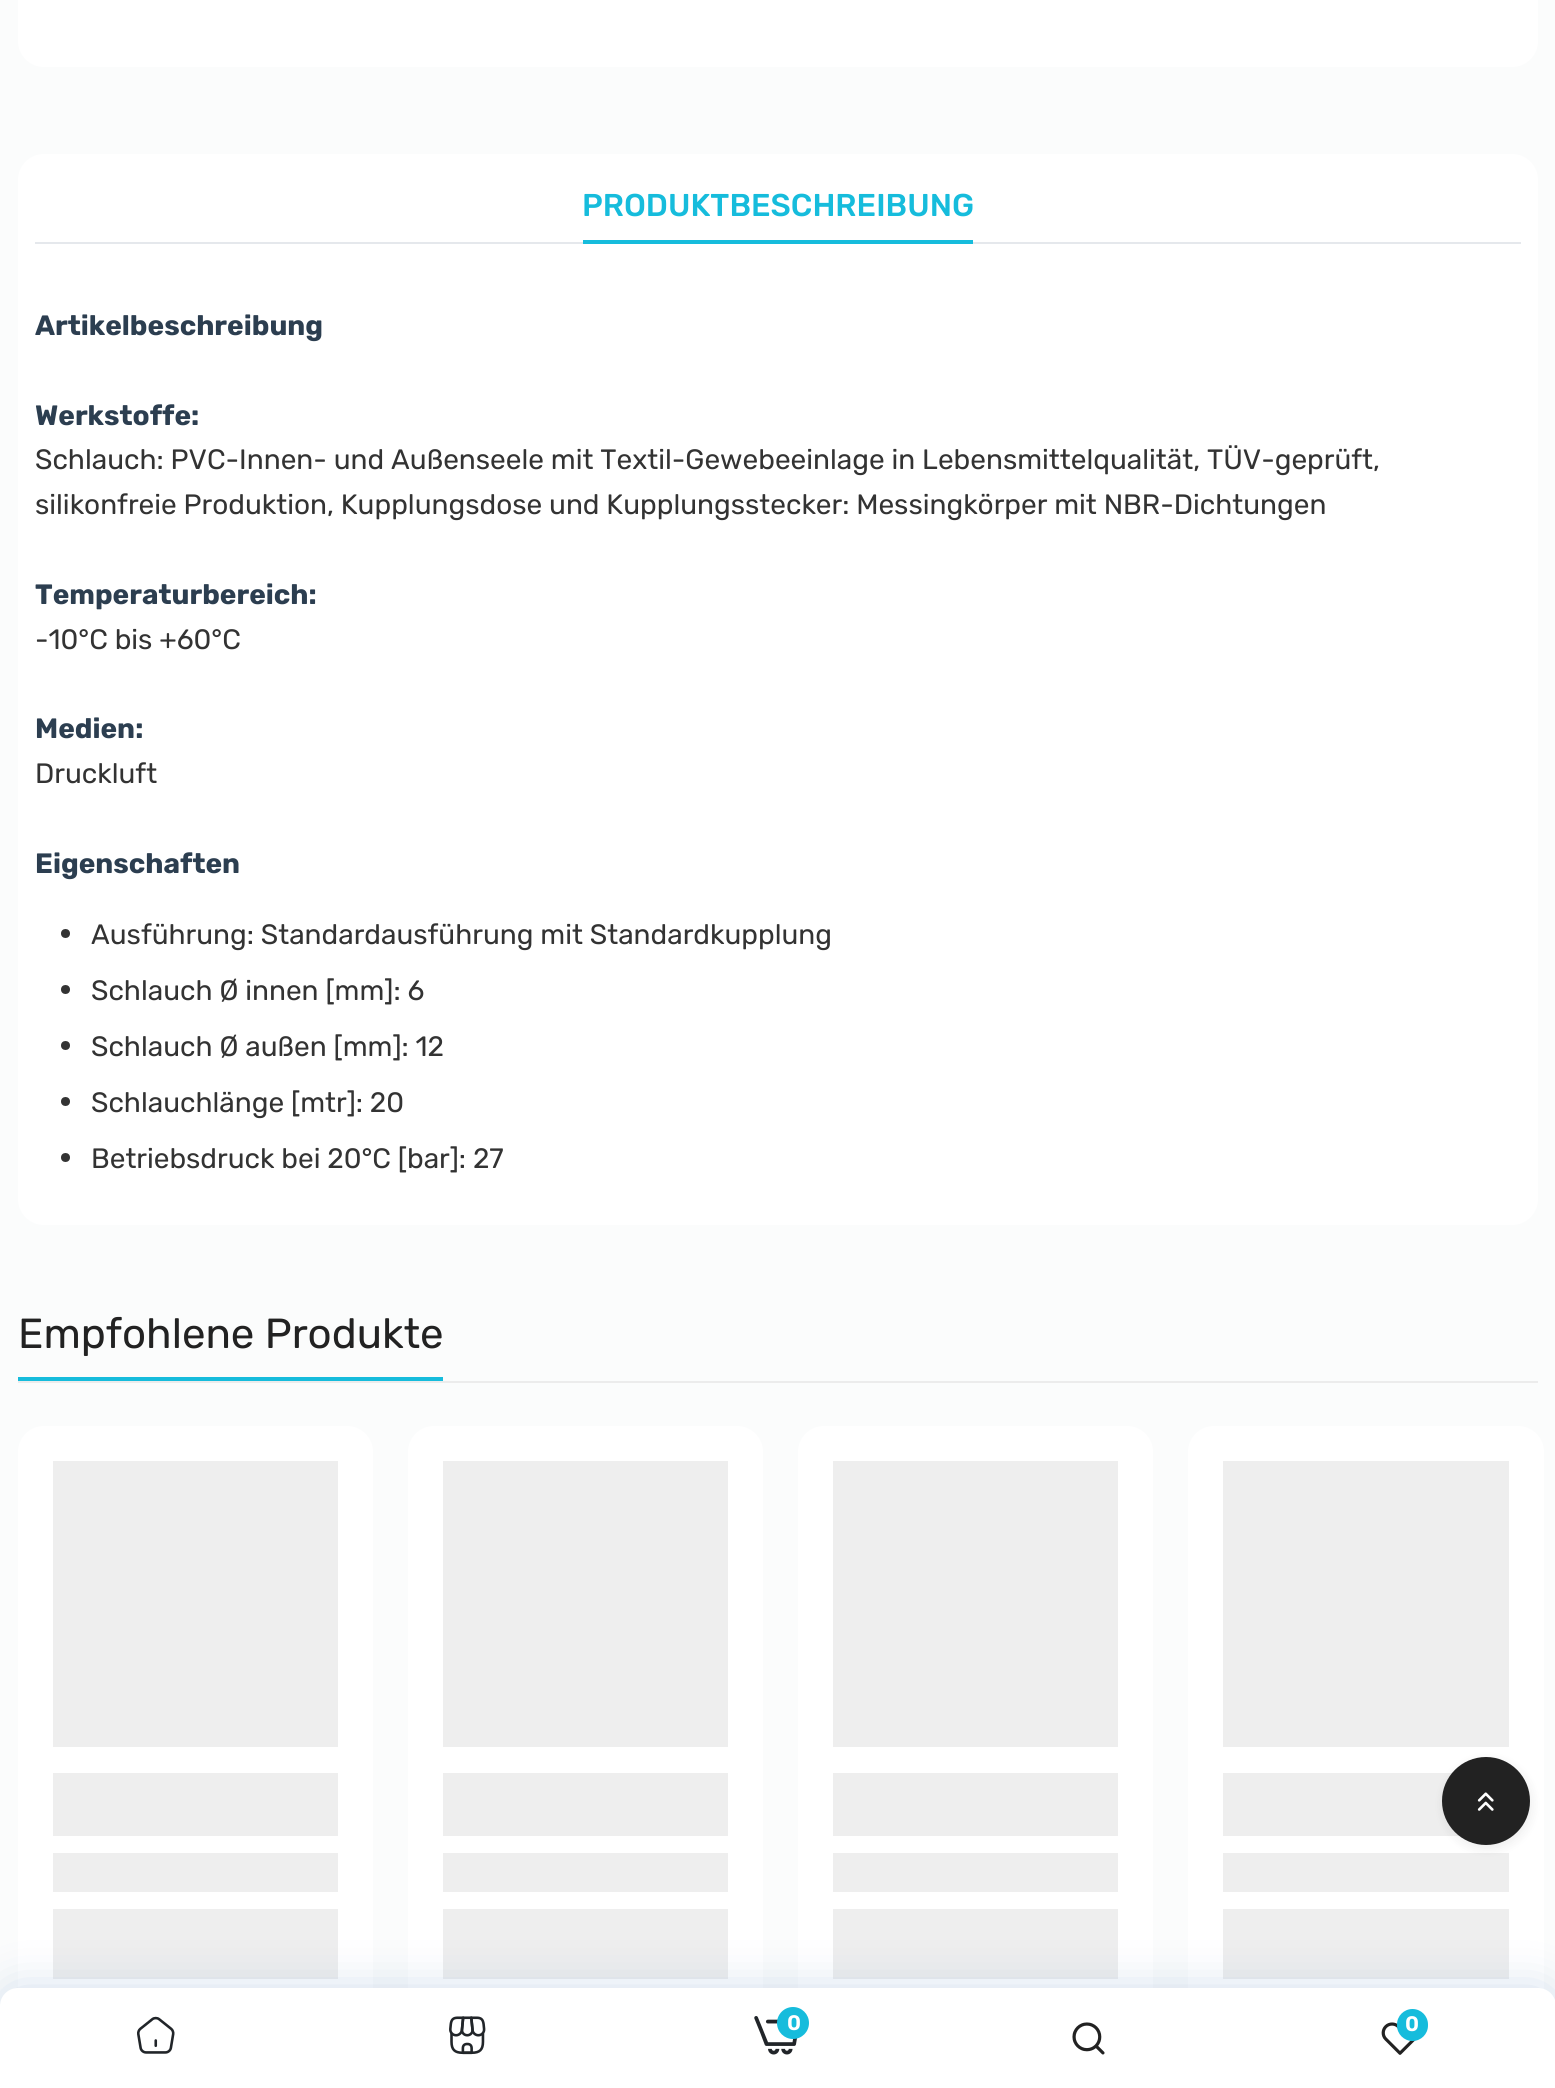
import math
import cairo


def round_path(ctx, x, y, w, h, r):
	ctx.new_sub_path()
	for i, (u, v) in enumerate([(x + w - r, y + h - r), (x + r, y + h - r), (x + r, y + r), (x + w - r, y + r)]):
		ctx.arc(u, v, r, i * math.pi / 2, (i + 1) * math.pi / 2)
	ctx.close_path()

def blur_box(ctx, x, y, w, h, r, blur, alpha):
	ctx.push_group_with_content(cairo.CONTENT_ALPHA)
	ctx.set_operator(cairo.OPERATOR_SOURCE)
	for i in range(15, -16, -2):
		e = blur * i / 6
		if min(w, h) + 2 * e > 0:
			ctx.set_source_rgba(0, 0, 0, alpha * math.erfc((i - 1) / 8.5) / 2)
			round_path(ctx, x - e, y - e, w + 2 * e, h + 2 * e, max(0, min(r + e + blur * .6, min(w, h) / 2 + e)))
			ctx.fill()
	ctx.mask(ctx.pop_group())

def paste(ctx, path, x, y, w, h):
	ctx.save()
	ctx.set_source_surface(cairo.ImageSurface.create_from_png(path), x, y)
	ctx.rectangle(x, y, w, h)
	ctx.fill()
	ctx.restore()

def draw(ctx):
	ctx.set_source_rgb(0.984, 0.988, 0.988)
	ctx.paint()
	ctx.set_source_rgb(1, 1, 1)
	round_path(ctx, 18, -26, 1520, 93, 26)
	ctx.fill()
	round_path(ctx, 18, 154, 1520, 1071, 26)
	ctx.fill()
	ctx.set_source_rgb(0.898, 0.91, 0.925)
	ctx.rectangle(35, 242, 1486, 2)
	ctx.fill()
	ctx.select_font_face('Rubik Medium')
	ctx.set_font_size(31.5)
	ctx.set_source_rgb(0.086, 0.737, 0.863)
	ctx.move_to(582, 216)
	ctx.show_text('PRODUKTBESCHREIBUNG')
	ctx.rectangle(583, 240, 390, 4)
	ctx.fill()
	ctx.select_font_face('Rubik', cairo.FONT_SLANT_NORMAL, cairo.FONT_WEIGHT_BOLD)
	ctx.set_font_size(28)
	ctx.set_source_rgb(0.173, 0.243, 0.314)
	ctx.move_to(35, 335)
	ctx.show_text('Artikelbeschreibung')
	ctx.move_to(35, 425)
	ctx.show_text('Werkstoffe:')
	ctx.select_font_face('Rubik')
	ctx.set_source_rgb(0.2, 0.2, 0.2)
	ctx.move_to(35, 469)
	ctx.show_text('Schlauch: PVC-Innen- und Außenseele mit Textil-Gewebeeinlage in Lebensmittelqualität, TÜV-geprüft,')
	ctx.move_to(35, 514)
	ctx.show_text('silikonfreie Produktion, Kupplungsdose und Kupplungsstecker: Messingkörper mit NBR-Dichtungen')
	ctx.select_font_face('Rubik', cairo.FONT_SLANT_NORMAL, cairo.FONT_WEIGHT_BOLD)
	ctx.set_source_rgb(0.173, 0.243, 0.314)
	ctx.move_to(35, 604)
	ctx.show_text('Temperaturbereich:')
	ctx.select_font_face('Rubik')
	ctx.set_source_rgb(0.2, 0.2, 0.2)
	ctx.move_to(35, 649)
	ctx.show_text('-10°C bis +60°C')
	ctx.select_font_face('Rubik', cairo.FONT_SLANT_NORMAL, cairo.FONT_WEIGHT_BOLD)
	ctx.set_source_rgb(0.173, 0.243, 0.314)
	ctx.move_to(35, 738)
	ctx.show_text('Medien:')
	ctx.select_font_face('Rubik')
	ctx.set_source_rgb(0.2, 0.2, 0.2)
	ctx.move_to(35, 783)
	ctx.show_text('Druckluft')
	ctx.select_font_face('Rubik', cairo.FONT_SLANT_NORMAL, cairo.FONT_WEIGHT_BOLD)
	ctx.set_source_rgb(0.173, 0.243, 0.314)
	ctx.move_to(35, 873)
	ctx.show_text('Eigenschaften')
	ctx.set_source_rgb(0.2, 0.2, 0.2)
	ctx.new_path()
	ctx.arc(65.5, 933.5, 4.5, 0, 2 * math.pi)
	ctx.fill()
	ctx.select_font_face('Rubik')
	ctx.move_to(91, 944)
	ctx.show_text('Ausführung: Standardausführung mit Standardkupplung')
	ctx.new_path()
	ctx.arc(65.5, 989.5, 4.5, 0, 2 * math.pi)
	ctx.fill()
	ctx.move_to(91, 1000)
	ctx.show_text('Schlauch Ø innen [mm]: 6')
	ctx.new_path()
	ctx.arc(65.5, 1045.5, 4.5, 0, 2 * math.pi)
	ctx.fill()
	ctx.move_to(91, 1056)
	ctx.show_text('Schlauch Ø außen [mm]: 12')
	ctx.new_path()
	ctx.arc(65.5, 1101.5, 4.5, 0, 2 * math.pi)
	ctx.fill()
	ctx.move_to(91, 1112)
	ctx.show_text('Schlauchlänge [mtr]: 20')
	ctx.new_path()
	ctx.arc(65.5, 1157.5, 4.5, 0, 2 * math.pi)
	ctx.fill()
	ctx.move_to(91, 1168)
	ctx.show_text('Betriebsdruck bei 20°C [bar]: 27')
	ctx.set_source_rgb(0.922, 0.922, 0.922)
	ctx.rectangle(18, 1381, 1520, 2)
	ctx.fill()
	ctx.set_font_size(42)
	ctx.set_source_rgb(0.133, 0.133, 0.133)
	ctx.move_to(18, 1348)
	ctx.show_text('Empfohlene Produkte')
	ctx.set_source_rgb(0.086, 0.737, 0.863)
	ctx.rectangle(18, 1377, 425, 4)
	ctx.fill()
	ctx.set_source_rgb(1, 1, 1)
	round_path(ctx, 18, 1426, 355, 588, 26)
	ctx.fill()
	gradient = cairo.LinearGradient(-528, 1552, 872, 1552)
	gradient.add_color_stop_rgba(0.08, 0.933, 0.933, 0.933, 1)
	gradient.add_color_stop_rgba(0.18, 0.867, 0.867, 0.867, 1)
	gradient.add_color_stop_rgba(0.33, 0.933, 0.933, 0.933, 1)
	ctx.set_source(gradient)
	ctx.rectangle(53, 1461, 285, 286)
	ctx.fill()
	gradient = cairo.LinearGradient(-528, 1864, 872, 1864)
	gradient.add_color_stop_rgba(0.08, 0.933, 0.933, 0.933, 1)
	gradient.add_color_stop_rgba(0.18, 0.867, 0.867, 0.867, 1)
	gradient.add_color_stop_rgba(0.33, 0.933, 0.933, 0.933, 1)
	ctx.set_source(gradient)
	ctx.rectangle(53, 1773, 285, 63)
	ctx.fill()
	gradient = cairo.LinearGradient(-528, 1944, 872, 1944)
	gradient.add_color_stop_rgba(0.08, 0.933, 0.933, 0.933, 1)
	gradient.add_color_stop_rgba(0.18, 0.867, 0.867, 0.867, 1)
	gradient.add_color_stop_rgba(0.33, 0.933, 0.933, 0.933, 1)
	ctx.set_source(gradient)
	ctx.rectangle(53, 1853, 285, 39)
	ctx.fill()
	gradient = cairo.LinearGradient(-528, 2000, 872, 2000)
	gradient.add_color_stop_rgba(0.08, 0.933, 0.933, 0.933, 1)
	gradient.add_color_stop_rgba(0.18, 0.867, 0.867, 0.867, 1)
	gradient.add_color_stop_rgba(0.33, 0.933, 0.933, 0.933, 1)
	ctx.set_source(gradient)
	ctx.rectangle(53, 1909, 285, 70)
	ctx.fill()
	ctx.set_source_rgb(1, 1, 1)
	round_path(ctx, 408, 1426, 355, 588, 26)
	ctx.fill()
	gradient = cairo.LinearGradient(-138, 1552, 1262, 1552)
	gradient.add_color_stop_rgba(0.08, 0.933, 0.933, 0.933, 1)
	gradient.add_color_stop_rgba(0.18, 0.867, 0.867, 0.867, 1)
	gradient.add_color_stop_rgba(0.33, 0.933, 0.933, 0.933, 1)
	ctx.set_source(gradient)
	ctx.rectangle(443, 1461, 285, 286)
	ctx.fill()
	gradient = cairo.LinearGradient(-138, 1864, 1262, 1864)
	gradient.add_color_stop_rgba(0.08, 0.933, 0.933, 0.933, 1)
	gradient.add_color_stop_rgba(0.18, 0.867, 0.867, 0.867, 1)
	gradient.add_color_stop_rgba(0.33, 0.933, 0.933, 0.933, 1)
	ctx.set_source(gradient)
	ctx.rectangle(443, 1773, 285, 63)
	ctx.fill()
	gradient = cairo.LinearGradient(-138, 1944, 1262, 1944)
	gradient.add_color_stop_rgba(0.08, 0.933, 0.933, 0.933, 1)
	gradient.add_color_stop_rgba(0.18, 0.867, 0.867, 0.867, 1)
	gradient.add_color_stop_rgba(0.33, 0.933, 0.933, 0.933, 1)
	ctx.set_source(gradient)
	ctx.rectangle(443, 1853, 285, 39)
	ctx.fill()
	gradient = cairo.LinearGradient(-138, 2000, 1262, 2000)
	gradient.add_color_stop_rgba(0.08, 0.933, 0.933, 0.933, 1)
	gradient.add_color_stop_rgba(0.18, 0.867, 0.867, 0.867, 1)
	gradient.add_color_stop_rgba(0.33, 0.933, 0.933, 0.933, 1)
	ctx.set_source(gradient)
	ctx.rectangle(443, 1909, 285, 70)
	ctx.fill()
	ctx.set_source_rgb(1, 1, 1)
	round_path(ctx, 798, 1426, 355, 588, 26)
	ctx.fill()
	gradient = cairo.LinearGradient(252, 1552, 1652, 1552)
	gradient.add_color_stop_rgba(0.08, 0.933, 0.933, 0.933, 1)
	gradient.add_color_stop_rgba(0.18, 0.867, 0.867, 0.867, 1)
	gradient.add_color_stop_rgba(0.33, 0.933, 0.933, 0.933, 1)
	ctx.set_source(gradient)
	ctx.rectangle(833, 1461, 285, 286)
	ctx.fill()
	gradient = cairo.LinearGradient(252, 1864, 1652, 1864)
	gradient.add_color_stop_rgba(0.08, 0.933, 0.933, 0.933, 1)
	gradient.add_color_stop_rgba(0.18, 0.867, 0.867, 0.867, 1)
	gradient.add_color_stop_rgba(0.33, 0.933, 0.933, 0.933, 1)
	ctx.set_source(gradient)
	ctx.rectangle(833, 1773, 285, 63)
	ctx.fill()
	gradient = cairo.LinearGradient(252, 1944, 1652, 1944)
	gradient.add_color_stop_rgba(0.08, 0.933, 0.933, 0.933, 1)
	gradient.add_color_stop_rgba(0.18, 0.867, 0.867, 0.867, 1)
	gradient.add_color_stop_rgba(0.33, 0.933, 0.933, 0.933, 1)
	ctx.set_source(gradient)
	ctx.rectangle(833, 1853, 285, 39)
	ctx.fill()
	gradient = cairo.LinearGradient(252, 2000, 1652, 2000)
	gradient.add_color_stop_rgba(0.08, 0.933, 0.933, 0.933, 1)
	gradient.add_color_stop_rgba(0.18, 0.867, 0.867, 0.867, 1)
	gradient.add_color_stop_rgba(0.33, 0.933, 0.933, 0.933, 1)
	ctx.set_source(gradient)
	ctx.rectangle(833, 1909, 285, 70)
	ctx.fill()
	ctx.set_source_rgb(1, 1, 1)
	round_path(ctx, 1188, 1426, 356, 588, 26)
	ctx.fill()
	gradient = cairo.LinearGradient(642, 1552, 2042, 1552)
	gradient.add_color_stop_rgba(0.08, 0.933, 0.933, 0.933, 1)
	gradient.add_color_stop_rgba(0.18, 0.867, 0.867, 0.867, 1)
	gradient.add_color_stop_rgba(0.33, 0.933, 0.933, 0.933, 1)
	ctx.set_source(gradient)
	ctx.rectangle(1223, 1461, 286, 286)
	ctx.fill()
	gradient = cairo.LinearGradient(642, 1864, 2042, 1864)
	gradient.add_color_stop_rgba(0.08, 0.933, 0.933, 0.933, 1)
	gradient.add_color_stop_rgba(0.18, 0.867, 0.867, 0.867, 1)
	gradient.add_color_stop_rgba(0.33, 0.933, 0.933, 0.933, 1)
	ctx.set_source(gradient)
	ctx.rectangle(1223, 1773, 237, 63)
	ctx.fill()
	gradient = cairo.LinearGradient(642, 1944, 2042, 1944)
	gradient.add_color_stop_rgba(0.08, 0.933, 0.933, 0.933, 1)
	gradient.add_color_stop_rgba(0.18, 0.867, 0.867, 0.867, 1)
	gradient.add_color_stop_rgba(0.33, 0.933, 0.933, 0.933, 1)
	ctx.set_source(gradient)
	ctx.rectangle(1223, 1853, 286, 39)
	ctx.fill()
	gradient = cairo.LinearGradient(642, 2000, 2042, 2000)
	gradient.add_color_stop_rgba(0.08, 0.933, 0.933, 0.933, 1)
	gradient.add_color_stop_rgba(0.18, 0.867, 0.867, 0.867, 1)
	gradient.add_color_stop_rgba(0.33, 0.933, 0.933, 0.933, 1)
	ctx.set_source(gradient)
	ctx.rectangle(1223, 1909, 286, 70)
	ctx.fill()
	ctx.set_source_rgb(0, 0, 0)
	blur_box(ctx, 1444, 1761, 87, 87, 43.5, 6, 0.08)
	ctx.set_source_rgb(0.133, 0.133, 0.133)
	ctx.arc(1486, 1801, 44, 0, 2 * math.pi)
	ctx.fill()
	paste(ctx, 'media/1.png', 1477, 1792, 17, 19)
	ctx.set_source_rgb(0.282, 0.482, 0.718)
	blur_box(ctx, 0, 1988, 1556, 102, 18, 22, 0.25)
	ctx.set_source_rgb(1, 1, 1)
	ctx.new_path()
	ctx.move_to(18, 1988)
	ctx.line_to(1538, 1988)
	ctx.curve_to(1548, 1988, 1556, 1996, 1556, 2006)
	ctx.line_to(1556, 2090)
	ctx.line_to(0, 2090)
	ctx.line_to(0, 2006)
	ctx.curve_to(0, 1996, 8, 1988, 18, 1988)
	ctx.close_path()
	ctx.fill()
	paste(ctx, 'media/2.png', 137, 2016, 38, 38)
	paste(ctx, 'media/3.png', 449, 2016, 37, 39)
	paste(ctx, 'media/4.png', 754, 2016, 43, 39)
	ctx.set_source_rgb(0.086, 0.737, 0.863)
	ctx.arc(793, 2023, 16, 0, 2 * math.pi)
	ctx.fill()
	ctx.select_font_face('Rubik SemiBold')
	ctx.set_font_size(21)
	ctx.set_source_rgb(1, 1, 1)
	ctx.move_to(787, 2030)
	ctx.show_text('0')
	paste(ctx, 'media/5.png', 1072, 2022, 33, 33)
	paste(ctx, 'media/6.png', 1381, 2022, 35, 33)
	ctx.set_source_rgb(0.086, 0.737, 0.863)
	round_path(ctx, 1397, 2009, 31, 32, 15.5)
	ctx.fill()
	ctx.set_source_rgb(1, 1, 1)
	ctx.move_to(1405, 2031)
	ctx.show_text('0')


surface = cairo.ImageSurface(cairo.FORMAT_RGB24, 1555, 2088)
ctx = cairo.Context(surface)
options = cairo.FontOptions()
options.set_hint_metrics(cairo.HINT_METRICS_OFF)
options.set_hint_style(cairo.HINT_STYLE_NONE)
ctx.set_font_options(options)
ctx.set_miter_limit(4)
draw(ctx)
surface.write_to_png('image.png')
